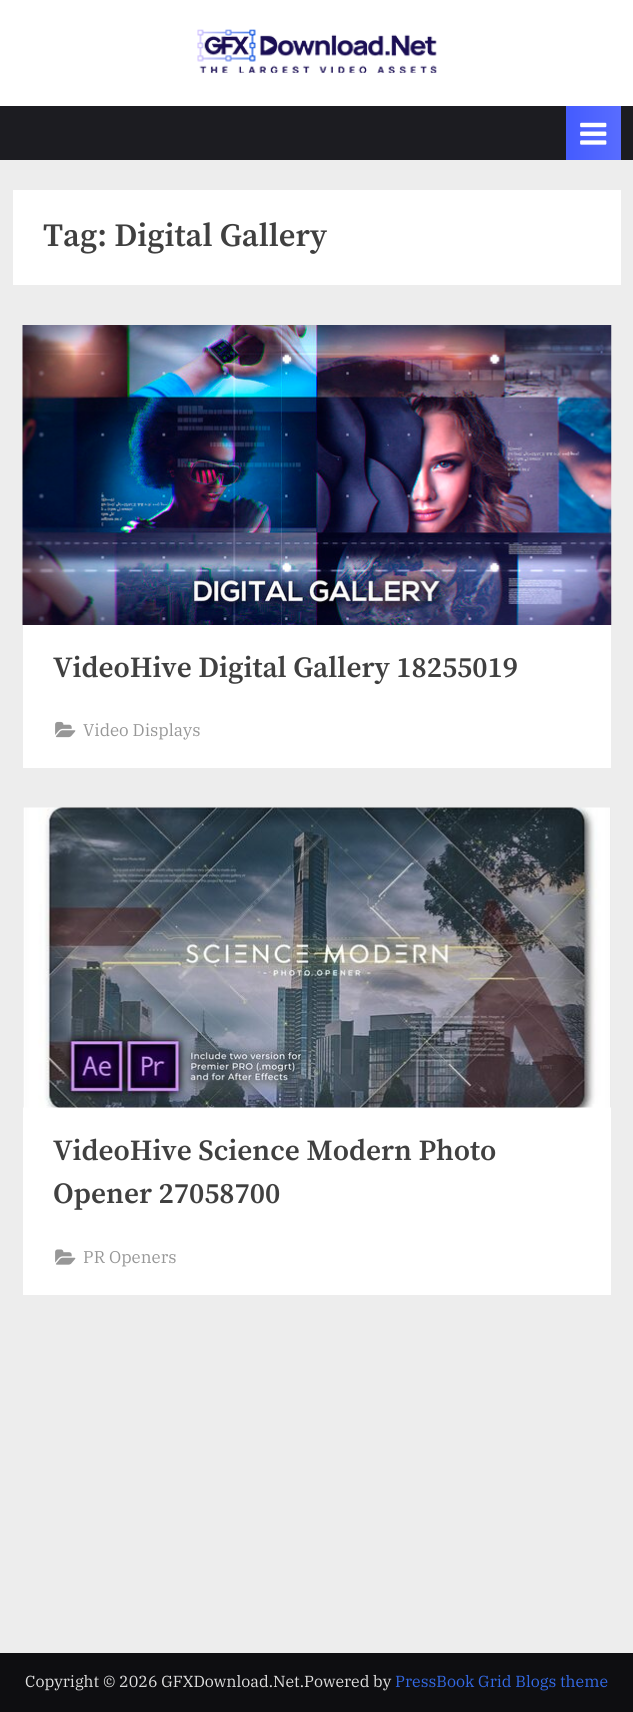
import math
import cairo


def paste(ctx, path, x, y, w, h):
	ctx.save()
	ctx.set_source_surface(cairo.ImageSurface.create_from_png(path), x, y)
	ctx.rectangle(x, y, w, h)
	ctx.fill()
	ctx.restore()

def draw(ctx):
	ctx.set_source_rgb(0.929, 0.929, 0.929)
	ctx.paint()
	ctx.set_source_rgb(1, 1, 1)
	ctx.rectangle(0, 0, 633, 106)
	ctx.fill()
	paste(ctx, 'media/1.png', 197, 29, 240, 44)
	ctx.set_source_rgb(0.11, 0.11, 0.129)
	ctx.rectangle(0, 106, 633, 54)
	ctx.fill()
	gradient = cairo.LinearGradient(469, 133, 569, 133)
	gradient.add_color_stop_rgba(0, 0.271, 0.361, 1, 1)
	gradient.add_color_stop_rgba(0.51, 0.345, 0.424, 1, 1)
	gradient.add_color_stop_rgba(1, 0.271, 0.361, 1, 1)
	ctx.set_source(gradient)
	ctx.rectangle(566, 106, 3, 54)
	ctx.fill()
	gradient = cairo.LinearGradient(569, 133, 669, 133)
	gradient.add_color_stop_rgba(0, 0.271, 0.361, 1, 1)
	gradient.add_color_stop_rgba(0.51, 0.345, 0.424, 1, 1)
	gradient.add_color_stop_rgba(1, 0.271, 0.361, 1, 1)
	ctx.set_source(gradient)
	ctx.rectangle(569, 106, 52, 54)
	ctx.fill()
	paste(ctx, 'media/2.png', 580, 122, 27, 23)
	ctx.set_source_rgb(1, 1, 1)
	ctx.rectangle(13, 190, 608, 95)
	ctx.fill()
	ctx.select_font_face('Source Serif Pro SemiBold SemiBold')
	ctx.set_font_size(32.5)
	ctx.set_source_rgb(0.251, 0.251, 0.251)
	ctx.move_to(43, 246)
	ctx.show_text('Tag: Digital Gallery')
	ctx.set_source_rgb(1, 1, 1)
	ctx.rectangle(23, 625, 588, 143)
	ctx.fill()
	paste(ctx, 'media/3.png', 22, 325, 590, 300)
	ctx.set_font_size(29.25)
	ctx.set_source_rgb(0.251, 0.251, 0.251)
	ctx.move_to(53, 677)
	ctx.show_text('VideoHive Digital Gallery 18255019')
	paste(ctx, 'media/4.png', 55, 721, 21, 17)
	ctx.select_font_face('IBM Plex Serif')
	ctx.set_font_size(17)
	ctx.set_source_rgb(0.592, 0.592, 0.592)
	ctx.move_to(83, 736)
	ctx.show_text('Video Displays')
	ctx.set_source_rgb(1, 1, 1)
	ctx.rectangle(23, 1107, 588, 188)
	ctx.fill()
	paste(ctx, 'media/5.png', 23, 807, 588, 301)
	ctx.select_font_face('Source Serif Pro SemiBold SemiBold')
	ctx.set_font_size(29.25)
	ctx.set_source_rgb(0.251, 0.251, 0.251)
	ctx.move_to(53, 1160)
	ctx.show_text('VideoHive Science Modern Photo')
	ctx.move_to(53, 1203)
	ctx.show_text('Opener 27058700')
	paste(ctx, 'media/6.png', 55, 1249, 21, 16)
	ctx.select_font_face('IBM Plex Serif')
	ctx.set_font_size(17)
	ctx.set_source_rgb(0.592, 0.592, 0.592)
	ctx.move_to(83, 1263)
	ctx.show_text('PR Openers')
	ctx.set_source_rgb(0.055, 0.055, 0.067)
	ctx.rectangle(0, 1653, 633, 59)
	ctx.fill()
	ctx.set_font_size(16)
	ctx.set_source_rgb(0.882, 0.882, 0.882)
	ctx.move_to(25, 1687)
	ctx.show_text('Copyright © 2026 GFXDownload.Net.Powered by')
	ctx.set_source_rgb(0.2, 0.412, 0.898)
	ctx.move_to(395, 1687)
	ctx.show_text('PressBook Grid Blogs theme')


surface = cairo.ImageSurface(cairo.FORMAT_RGB24, 633, 1712)
ctx = cairo.Context(surface)
options = cairo.FontOptions()
options.set_hint_metrics(cairo.HINT_METRICS_OFF)
options.set_hint_style(cairo.HINT_STYLE_NONE)
ctx.set_font_options(options)
ctx.set_miter_limit(4)
draw(ctx)
surface.write_to_png('image.png')
